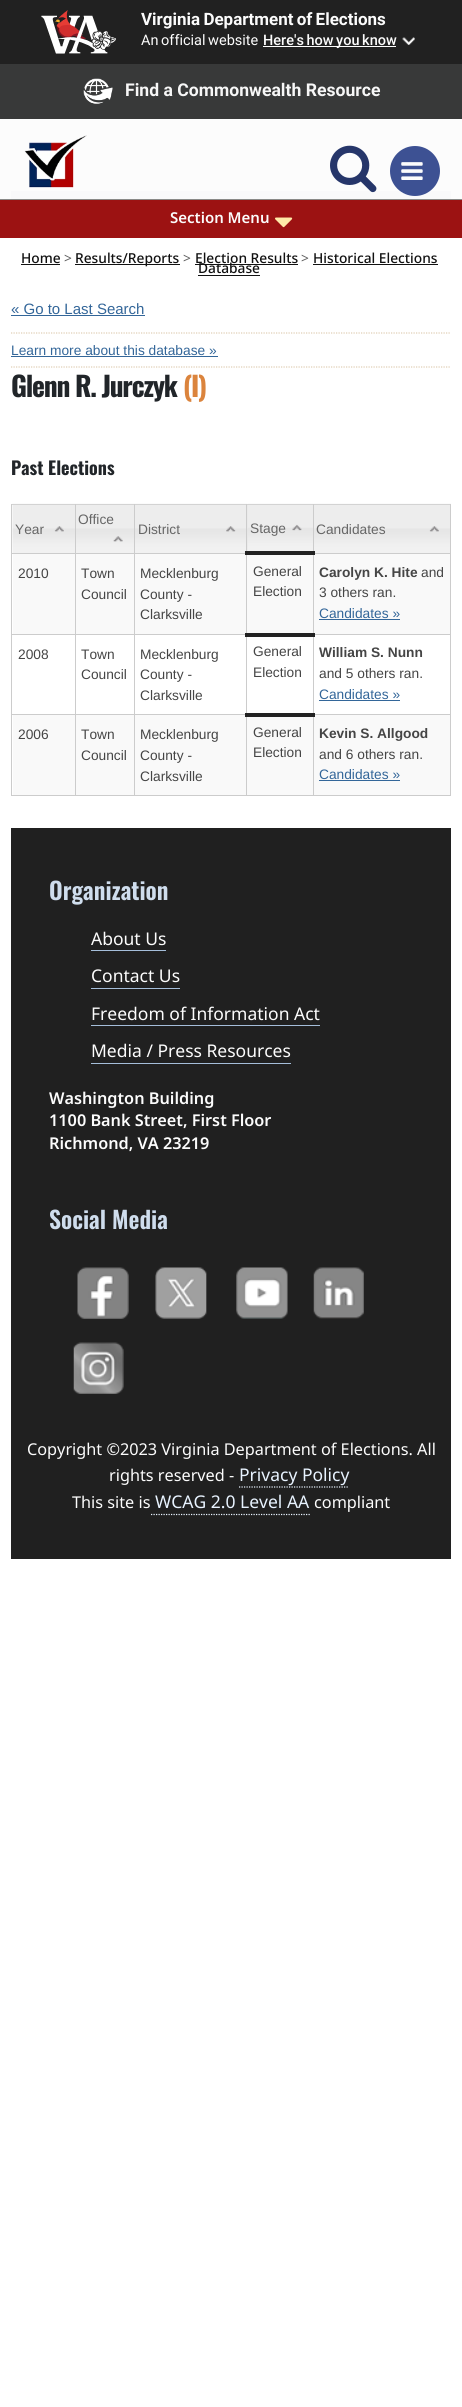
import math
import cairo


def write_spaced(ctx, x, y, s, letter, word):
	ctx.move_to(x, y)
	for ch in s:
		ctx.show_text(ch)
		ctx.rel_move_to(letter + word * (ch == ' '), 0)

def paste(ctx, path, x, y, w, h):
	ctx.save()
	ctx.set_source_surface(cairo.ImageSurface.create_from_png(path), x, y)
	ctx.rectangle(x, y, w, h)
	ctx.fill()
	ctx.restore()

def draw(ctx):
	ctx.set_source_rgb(1, 1, 1)
	ctx.paint()
	ctx.set_source_rgb(0.129, 0.129, 0.129)
	ctx.rectangle(0, 0, 462, 64)
	ctx.fill()
	paste(ctx, 'media/1.png', 41, 10, 75, 44)
	ctx.select_font_face('Roboto', cairo.FONT_SLANT_NORMAL, cairo.FONT_WEIGHT_BOLD)
	ctx.set_font_size(17)
	ctx.set_source_rgb(0.988, 0.988, 0.988)
	write_spaced(ctx, 141, 25, 'Virginia Department of Elections', 0, -1)
	ctx.select_font_face('Roboto')
	ctx.set_font_size(14.5)
	write_spaced(ctx, 141, 45, 'An official website', 0, -1)
	ctx.set_source_rgb(1, 1, 1)
	ctx.rectangle(263, 46, 133, 1)
	ctx.fill()
	ctx.select_font_face('Roboto Medium')
	ctx.set_source_rgb(0.988, 0.988, 0.988)
	write_spaced(ctx, 263, 45, 'Here\'s how you know', 0, -1)
	paste(ctx, 'media/2.png', 402, 37, 13, 8)
	ctx.set_source_rgb(0.22, 0.224, 0.224)
	ctx.rectangle(0, 64, 462, 55)
	ctx.fill()
	paste(ctx, 'media/3.png', 83, 78, 30, 26)
	ctx.select_font_face('Roboto', cairo.FONT_SLANT_NORMAL, cairo.FONT_WEIGHT_BOLD)
	ctx.set_font_size(17.6)
	ctx.set_source_rgb(0.965, 0.965, 0.965)
	ctx.move_to(125, 96)
	ctx.show_text('Find a Commonwealth Resource')
	ctx.set_source_rgb(0.988, 0.988, 0.988)
	ctx.rectangle(0, 119, 462, 80)
	ctx.fill()
	ctx.set_source_rgb(0.537, 0.537, 0.529)
	ctx.rectangle(0, 199, 462, 1)
	ctx.fill()
	ctx.set_source_rgb(0.973, 0.976, 0.98)
	ctx.rectangle(11, 191, 440, 8)
	ctx.fill()
	paste(ctx, 'media/4.png', 24, 135, 63, 53)
	paste(ctx, 'media/5.png', 330, 145, 47, 48)
	ctx.set_source_rgb(0.239, 0.318, 0.576)
	ctx.arc(415, 171, 25, 0, 2 * math.pi)
	ctx.fill()
	paste(ctx, 'media/6.png', 401, 162, 22, 18)
	ctx.set_source_rgb(0.612, 0.071, 0.071)
	ctx.rectangle(0, 200, 462, 38)
	ctx.fill()
	ctx.select_font_face('Noto Sans SemiBold')
	ctx.set_font_size(15)
	ctx.set_source_rgb(0.988, 0.988, 0.988)
	ctx.move_to(170, 223)
	ctx.show_text('Section Menu')
	paste(ctx, 'media/7.png', 275, 217, 18, 11)
	ctx.select_font_face('Noto Sans Medium')
	ctx.set_font_size(13.75)
	ctx.set_source_rgb(0.067, 0.067, 0.067)
	ctx.move_to(21, 263)
	ctx.show_text('Home')
	ctx.rectangle(21, 264, 39, 1)
	ctx.fill()
	ctx.select_font_face('Noto Sans')
	ctx.set_source_rgb(0.376, 0.376, 0.376)
	ctx.move_to(64, 263)
	ctx.show_text('>')
	ctx.set_source_rgb(0.067, 0.067, 0.067)
	ctx.rectangle(75, 264, 105, 1)
	ctx.fill()
	ctx.select_font_face('Noto Sans Medium')
	ctx.move_to(75, 263)
	ctx.show_text('Results/Reports')
	ctx.select_font_face('Noto Sans')
	ctx.set_source_rgb(0.376, 0.376, 0.376)
	ctx.move_to(183, 263)
	ctx.show_text('>')
	ctx.select_font_face('Noto Sans Medium')
	ctx.set_source_rgb(0.067, 0.067, 0.067)
	ctx.move_to(195, 263)
	ctx.show_text('Election Results')
	ctx.rectangle(195, 264, 103, 1)
	ctx.fill()
	ctx.select_font_face('Noto Sans')
	ctx.set_source_rgb(0.376, 0.376, 0.376)
	ctx.move_to(301, 263)
	ctx.show_text('>')
	ctx.select_font_face('Noto Sans Medium')
	ctx.set_source_rgb(0.067, 0.067, 0.067)
	ctx.move_to(313, 263)
	ctx.show_text('Historical Elections')
	ctx.rectangle(313, 264, 125, 1)
	ctx.fill()
	ctx.move_to(198, 273)
	ctx.show_text('Database')
	ctx.rectangle(198, 275, 62, 1)
	ctx.fill()
	ctx.select_font_face('Liberation Sans')
	ctx.set_font_size(15)
	ctx.set_source_rgb(0.2, 0.4, 0.6)
	ctx.move_to(11, 314)
	ctx.show_text('« Go to Last Search')
	ctx.rectangle(11, 315, 134, 1)
	ctx.fill()
	ctx.new_path()
	ctx.move_to(11, 333)
	ctx.line_to(451, 333)
	ctx.set_source_rgb(0.875, 0.804, 0.702)
	ctx.set_line_width(1.2)
	ctx.set_dash([1.25, 1.25])
	ctx.stroke()
	ctx.new_path()
	ctx.move_to(11, 367)
	ctx.line_to(451, 367)
	ctx.stroke()
	ctx.set_font_size(13.75)
	ctx.set_source_rgb(0.2, 0.4, 0.6)
	ctx.move_to(11, 355)
	ctx.show_text('Learn more about this database »')
	ctx.rectangle(11, 356, 207, 1)
	ctx.fill()
	ctx.select_font_face('Oswald', cairo.FONT_SLANT_NORMAL, cairo.FONT_WEIGHT_BOLD)
	ctx.set_font_size(27.5)
	ctx.set_source_rgb(0.129, 0.145, 0.161)
	write_spaced(ctx, 11, 397, 'Glenn R. Jurczyk', -1.25, 0)
	ctx.set_source_rgb(0.859, 0.518, 0.239)
	write_spaced(ctx, 183, 397, '(I)', -1.25, 0)
	ctx.set_font_size(18)
	ctx.set_source_rgb(0.129, 0.145, 0.161)
	ctx.move_to(11, 475)
	ctx.show_text('Past Elections')
	ctx.set_source_rgb(0.8, 0.8, 0.8)
	ctx.rectangle(11, 795, 440, 1)
	ctx.fill()
	paste(ctx, 'media/8.png', 75, 503, 60, 50)
	ctx.set_source_rgb(0.902, 0.902, 0.902)
	ctx.rectangle(247, 505, 1, 46)
	ctx.fill()
	paste(ctx, 'media/12.png', 135, 503, 113, 50)
	paste(ctx, 'media/10.png', 12, 503, 63, 50)
	paste(ctx, 'media/14.png', 248, 503, 66, 48)
	paste(ctx, 'media/16.png', 314, 503, 137, 50)
	ctx.set_source_rgb(0.827, 0.827, 0.827)
	ctx.rectangle(11, 504, 440, 1)
	ctx.fill()
	ctx.set_source_rgb(0.976, 0.976, 0.976)
	ctx.rectangle(13, 554, 437, 80)
	ctx.rectangle(13, 715, 437, 80)
	ctx.fill()
	ctx.set_source_rgb(0.8, 0.8, 0.8)
	ctx.rectangle(246, 553, 1, 243)
	ctx.rectangle(246, 504, 1, 50)
	ctx.rectangle(134, 714, 1, 82)
	ctx.rectangle(134, 714, 114, 1)
	ctx.rectangle(134, 634, 1, 81)
	ctx.rectangle(134, 634, 114, 1)
	ctx.rectangle(134, 553, 1, 82)
	ctx.rectangle(134, 553, 114, 1)
	ctx.rectangle(134, 504, 1, 50)
	ctx.rectangle(75, 714, 1, 82)
	ctx.rectangle(75, 714, 60, 1)
	ctx.rectangle(75, 634, 1, 81)
	ctx.rectangle(75, 634, 60, 1)
	ctx.rectangle(75, 553, 1, 82)
	ctx.rectangle(75, 553, 60, 1)
	ctx.fill()
	ctx.select_font_face('Liberation Sans')
	ctx.set_font_size(13.75)
	ctx.set_source_rgb(0.4, 0.4, 0.4)
	ctx.move_to(78, 524)
	ctx.show_text('Office')
	paste(ctx, 'media/9.png', 113, 536, 10, 6)
	ctx.set_source_rgb(0.8, 0.8, 0.8)
	ctx.rectangle(75, 504, 1, 50)
	ctx.rectangle(11, 714, 1, 82)
	ctx.rectangle(11, 714, 65, 1)
	ctx.rectangle(11, 634, 1, 81)
	ctx.rectangle(11, 634, 65, 1)
	ctx.rectangle(11, 553, 1, 82)
	ctx.rectangle(11, 553, 65, 1)
	ctx.rectangle(11, 504, 1, 50)
	ctx.fill()
	ctx.set_source_rgb(0.4, 0.4, 0.4)
	ctx.move_to(15, 534)
	ctx.show_text('Year')
	paste(ctx, 'media/11.png', 54, 526, 10, 6)
	ctx.move_to(138, 534)
	ctx.show_text('District')
	paste(ctx, 'media/13.png', 226, 526, 10, 6)
	ctx.set_source_rgb(0.8, 0.8, 0.8)
	ctx.rectangle(450, 553, 1, 243)
	ctx.rectangle(450, 504, 1, 50)
	ctx.rectangle(313, 714, 1, 82)
	ctx.rectangle(313, 714, 138, 1)
	ctx.rectangle(313, 634, 1, 81)
	ctx.rectangle(313, 634, 138, 1)
	ctx.rectangle(313, 553, 1, 82)
	ctx.rectangle(313, 553, 138, 1)
	ctx.rectangle(313, 504, 1, 50)
	ctx.fill()
	ctx.set_source_rgb(0.4, 0.4, 0.4)
	ctx.move_to(250, 533)
	ctx.show_text('Stage')
	paste(ctx, 'media/15.png', 292, 524, 10, 7)
	ctx.move_to(316, 534)
	ctx.show_text('Candidates')
	paste(ctx, 'media/17.png', 429, 526, 10, 6)
	ctx.set_source_rgb(0.271, 0.271, 0.271)
	for x, y, s in [
		(18, 578, '2010'),
		(81, 578, 'Town'),
		(81, 599, 'Council'),
		(140, 578, 'Mecklenburg'),
		(140, 599, 'County -'),
		(140, 619, 'Clarksville'),
	]:
		ctx.move_to(x, y)
		ctx.show_text(s)
	ctx.set_source_rgb(0.133, 0.133, 0.133)
	ctx.rectangle(245, 551, 70, 4)
	ctx.fill()
	ctx.set_source_rgb(0.271, 0.271, 0.271)
	ctx.move_to(253, 576)
	ctx.show_text('General')
	ctx.move_to(253, 596)
	ctx.show_text('Election')
	ctx.select_font_face('Liberation Sans', cairo.FONT_SLANT_NORMAL, cairo.FONT_WEIGHT_BOLD)
	ctx.move_to(319, 577)
	ctx.show_text('Carolyn K. Hite')
	ctx.select_font_face('Liberation Sans')
	ctx.move_to(421, 577)
	ctx.show_text('and')
	ctx.move_to(319, 597)
	ctx.show_text('3 others ran.')
	ctx.set_source_rgb(0.2, 0.4, 0.6)
	ctx.move_to(319, 618)
	ctx.show_text('Candidates »')
	ctx.rectangle(319, 619, 81, 1)
	ctx.fill()
	ctx.set_source_rgb(0.271, 0.271, 0.271)
	for x, y, s in [
		(18, 659, '2008'),
		(81, 659, 'Town'),
		(81, 679, 'Council'),
		(140, 659, 'Mecklenburg'),
		(140, 679, 'County -'),
		(140, 700, 'Clarksville'),
	]:
		ctx.move_to(x, y)
		ctx.show_text(s)
	ctx.set_source_rgb(0.133, 0.133, 0.133)
	ctx.rectangle(245, 633, 70, 4)
	ctx.fill()
	ctx.set_source_rgb(0.271, 0.271, 0.271)
	ctx.move_to(253, 656)
	ctx.show_text('General')
	ctx.move_to(253, 677)
	ctx.show_text('Election')
	ctx.select_font_face('Liberation Sans', cairo.FONT_SLANT_NORMAL, cairo.FONT_WEIGHT_BOLD)
	ctx.move_to(319, 657)
	ctx.show_text('William S. Nunn')
	ctx.select_font_face('Liberation Sans')
	ctx.move_to(319, 678)
	ctx.show_text('and 5 others ran.')
	ctx.set_source_rgb(0.2, 0.4, 0.6)
	ctx.move_to(319, 699)
	ctx.show_text('Candidates »')
	ctx.rectangle(319, 700, 81, 1)
	ctx.fill()
	ctx.set_source_rgb(0.271, 0.271, 0.271)
	for x, y, s in [
		(18, 739, '2006'),
		(81, 739, 'Town'),
		(81, 760, 'Council'),
		(140, 739, 'Mecklenburg'),
		(140, 760, 'County -'),
		(140, 781, 'Clarksville'),
	]:
		ctx.move_to(x, y)
		ctx.show_text(s)
	ctx.set_source_rgb(0.133, 0.133, 0.133)
	ctx.rectangle(245, 713, 70, 4)
	ctx.fill()
	ctx.set_source_rgb(0.271, 0.271, 0.271)
	ctx.move_to(253, 737)
	ctx.show_text('General')
	ctx.move_to(253, 757)
	ctx.show_text('Election')
	ctx.select_font_face('Liberation Sans', cairo.FONT_SLANT_NORMAL, cairo.FONT_WEIGHT_BOLD)
	ctx.move_to(319, 738)
	ctx.show_text('Kevin S. Allgood')
	ctx.select_font_face('Liberation Sans')
	ctx.move_to(319, 759)
	ctx.show_text('and 6 others ran.')
	ctx.set_source_rgb(0.2, 0.4, 0.6)
	ctx.move_to(319, 779)
	ctx.show_text('Candidates »')
	ctx.rectangle(319, 780, 81, 1)
	ctx.fill()
	ctx.set_source_rgb(0.125, 0.125, 0.125)
	ctx.rectangle(11, 828, 440, 731)
	ctx.fill()
	ctx.select_font_face('Oswald SemiBold')
	ctx.set_font_size(23.75)
	ctx.set_source_rgb(0.812, 0.867, 0.929)
	ctx.move_to(49, 900)
	ctx.show_text('Organization')
	ctx.select_font_face('Noto Sans')
	ctx.set_font_size(17.5)
	ctx.set_source_rgb(0.988, 0.988, 0.988)
	ctx.move_to(91, 945)
	ctx.show_text('About Us')
	ctx.set_source_rgb(0.647, 0.745, 0.855)
	ctx.rectangle(91, 950, 75, 1)
	ctx.fill()
	ctx.set_source_rgb(0.988, 0.988, 0.988)
	ctx.move_to(91, 982)
	ctx.show_text('Contact Us')
	ctx.set_source_rgb(0.647, 0.745, 0.855)
	ctx.rectangle(91, 988, 89, 1)
	ctx.fill()
	ctx.set_source_rgb(0.988, 0.988, 0.988)
	ctx.move_to(91, 1020)
	ctx.show_text('Freedom of Information Act')
	ctx.set_source_rgb(0.647, 0.745, 0.855)
	ctx.rectangle(91, 1025, 229, 1)
	ctx.fill()
	ctx.set_source_rgb(0.988, 0.988, 0.988)
	ctx.move_to(91, 1057)
	ctx.show_text('Media / Press Resources')
	ctx.set_source_rgb(0.647, 0.745, 0.855)
	ctx.rectangle(91, 1063, 200, 1)
	ctx.fill()
	ctx.select_font_face('Noto Sans SemiBold')
	ctx.set_font_size(16.25)
	ctx.set_source_rgb(0.988, 0.988, 0.988)
	for x, y, s in [
		(49, 1104, 'Washington Building'),
		(49, 1126, '1100 Bank Street, First Floor'),
		(49, 1149, 'Richmond, VA 23219'),
	]:
		ctx.move_to(x, y)
		ctx.show_text(s)
	ctx.select_font_face('Oswald SemiBold')
	ctx.set_font_size(23.75)
	ctx.set_source_rgb(0.812, 0.867, 0.929)
	ctx.move_to(49, 1229)
	ctx.show_text('Social Media')
	paste(ctx, 'media/18.png', 77, 1267, 52, 52)
	paste(ctx, 'media/19.png', 155, 1267, 52, 52)
	paste(ctx, 'media/20.png', 236, 1267, 52, 52)
	paste(ctx, 'media/21.png', 313, 1267, 51, 52)
	paste(ctx, 'media/22.png', 73, 1342, 51, 52)
	ctx.select_font_face('Noto Sans')
	ctx.set_font_size(16.25)
	ctx.set_source_rgb(0.988, 0.988, 0.988)
	ctx.move_to(27, 1455)
	ctx.show_text('Copyright ©2023 Virginia Department of Elections. All')
	ctx.move_to(109, 1481)
	ctx.show_text('rights reserved -')
	ctx.set_font_size(17.5)
	ctx.set_source_rgb(0.91, 0.953, 1)
	ctx.move_to(239, 1481)
	ctx.show_text('Privacy Policy')
	ctx.new_path()
	ctx.move_to(239, 1487)
	ctx.line_to(349, 1487)
	ctx.stroke()
	ctx.set_font_size(16.25)
	ctx.set_source_rgb(0.988, 0.988, 0.988)
	ctx.move_to(72, 1508)
	ctx.show_text('This site is')
	ctx.set_font_size(17.5)
	ctx.set_source_rgb(0.91, 0.953, 1)
	ctx.move_to(155, 1508)
	ctx.show_text('WCAG 2.0 Level AA')
	ctx.new_path()
	ctx.move_to(151, 1514.5)
	ctx.line_to(310, 1514.5)
	ctx.stroke()
	ctx.set_font_size(16.25)
	ctx.set_source_rgb(0.988, 0.988, 0.988)
	ctx.move_to(314, 1508)
	ctx.show_text('compliant')


surface = cairo.ImageSurface(cairo.FORMAT_RGB24, 462, 2407)
ctx = cairo.Context(surface)
options = cairo.FontOptions()
options.set_hint_metrics(cairo.HINT_METRICS_OFF)
options.set_hint_style(cairo.HINT_STYLE_NONE)
ctx.set_font_options(options)
ctx.set_miter_limit(4)
draw(ctx)
surface.write_to_png('image.png')
